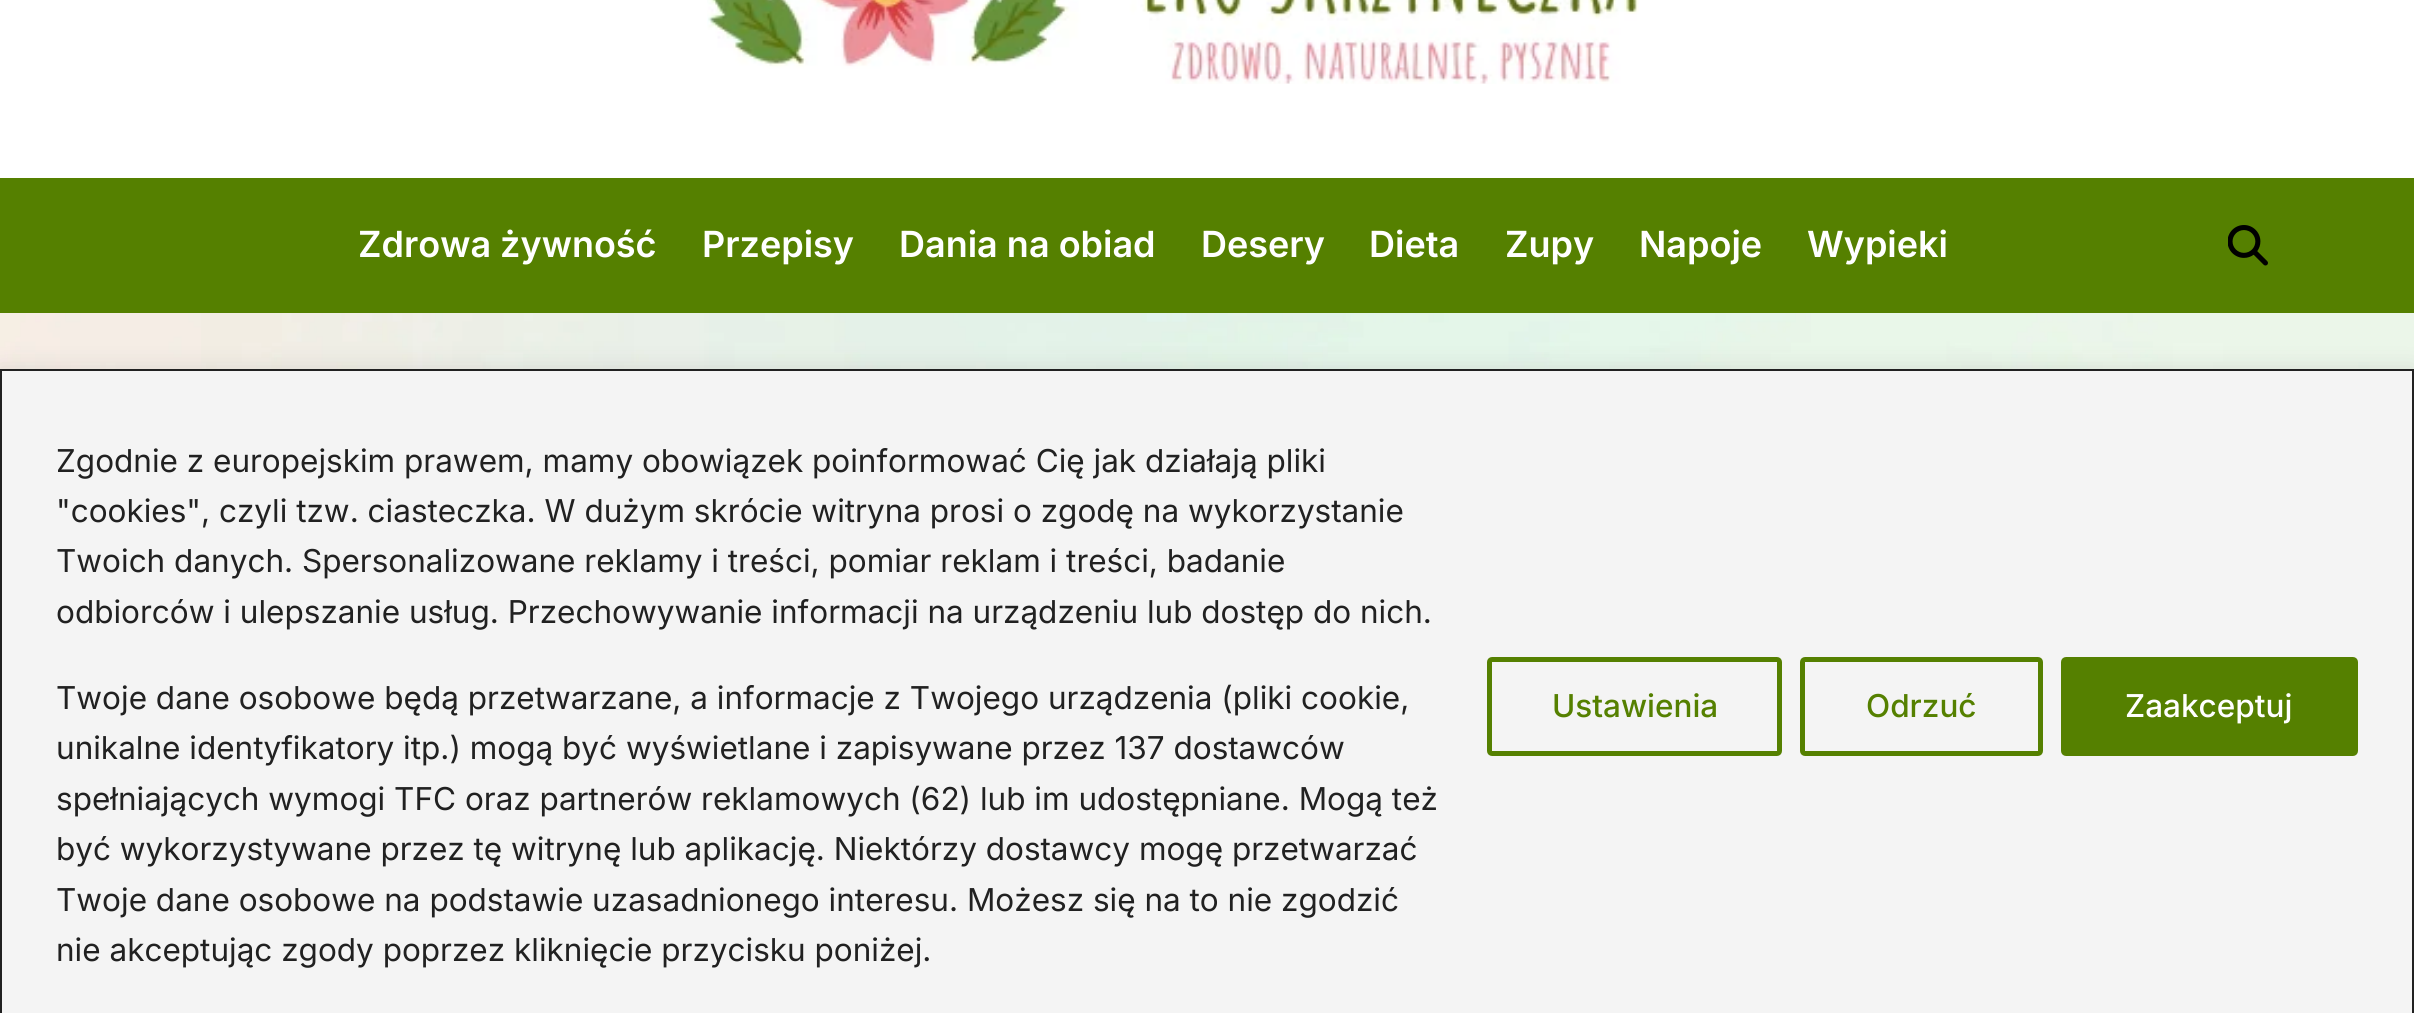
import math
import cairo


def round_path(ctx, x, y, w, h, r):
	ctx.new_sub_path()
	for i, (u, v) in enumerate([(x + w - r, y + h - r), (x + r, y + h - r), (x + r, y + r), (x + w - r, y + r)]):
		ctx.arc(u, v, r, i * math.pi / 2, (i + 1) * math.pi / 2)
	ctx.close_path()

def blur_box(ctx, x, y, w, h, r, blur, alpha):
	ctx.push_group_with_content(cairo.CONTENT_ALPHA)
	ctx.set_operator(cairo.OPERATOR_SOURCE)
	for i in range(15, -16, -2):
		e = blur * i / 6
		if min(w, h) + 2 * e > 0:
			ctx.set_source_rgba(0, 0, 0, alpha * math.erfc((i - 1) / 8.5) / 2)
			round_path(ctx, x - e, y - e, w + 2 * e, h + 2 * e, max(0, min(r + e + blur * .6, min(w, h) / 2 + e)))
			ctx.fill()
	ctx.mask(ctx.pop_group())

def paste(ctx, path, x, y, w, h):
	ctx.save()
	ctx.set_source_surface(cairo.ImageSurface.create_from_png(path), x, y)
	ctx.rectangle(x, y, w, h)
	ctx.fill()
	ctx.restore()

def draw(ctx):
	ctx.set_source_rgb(1, 1, 1)
	ctx.paint()
	paste(ctx, 'media/1.png', 0, 313, 2414, 56)
	paste(ctx, 'media/2.png', 707, 0, 932, 84)
	ctx.set_source_rgb(0.333, 0.502, 0)
	ctx.rectangle(0, 178, 2414, 135)
	ctx.fill()
	ctx.select_font_face('Inter SemiBold')
	ctx.set_font_size(36)
	ctx.set_source_rgb(1, 1, 1)
	for x, y, s in [
		(358, 257, 'Zdrowa żywność'),
		(702, 257, 'Przepisy'),
		(899, 257, 'Dania na obiad'),
		(1201, 257, 'Desery'),
		(1369, 257, 'Dieta'),
		(1505, 257, 'Zupy'),
		(1639, 257, 'Napoje'),
		(1807, 257, 'Wypieki'),
	]:
		ctx.move_to(x, y)
		ctx.show_text(s)
	paste(ctx, 'media/3.png', 2228, 225, 40, 41)
	ctx.set_source_rgb(0.675, 0.671, 0.671)
	blur_box(ctx, 0, 367, 2414, 646, 0, 11, 0.3)
	ctx.set_source_rgb(0.957, 0.957, 0.957)
	ctx.rectangle(1, 370, 2412, 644)
	ctx.fill_preserve()
	ctx.set_source_rgb(0.129, 0.129, 0.129)
	ctx.stroke()
	ctx.select_font_face('Inter')
	ctx.set_font_size(31.5)
	for x, y, s in [
		(56, 472, 'Zgodnie z europejskim prawem, mamy obowiązek poinformować Cię jak działają pliki'),
		(56, 522, '"cookies", czyli tzw. ciasteczka. W dużym skrócie witryna prosi o zgodę na wykorzystanie'),
		(56, 572, 'Twoich danych. Spersonalizowane reklamy i treści, pomiar reklam i treści, badanie'),
		(56, 623, 'odbiorców i ulepszanie usług. Przechowywanie informacji na urządzeniu lub dostęp do nich.'),
		(56, 709, 'Twoje dane osobowe będą przetwarzane, a informacje z Twojego urządzenia (pliki cookie,'),
		(56, 759, 'unikalne identyfikatory itp.) mogą być wyświetlane i zapisywane przez 137 dostawców'),
		(56, 810, 'spełniających wymogi TFC oraz partnerów reklamowych (62) lub im udostępniane. Mogą też'),
		(56, 860, 'być wykorzystywane przez tę witrynę lub aplikację. Niektórzy dostawcy mogę przetwarzać'),
		(56, 911, 'Twoje dane osobowe na podstawie uzasadnionego interesu. Możesz się na to nie zgodzić'),
		(56, 961, 'nie akceptując zgody poprzez kliknięcie przycisku poniżej.'),
	]:
		ctx.move_to(x, y)
		ctx.show_text(s)
	round_path(ctx, 1489.5, 659.5, 290, 94, 2.5)
	ctx.set_source_rgb(0.333, 0.502, 0)
	ctx.set_line_width(5)
	ctx.stroke()
	ctx.select_font_face('Inter Medium')
	ctx.move_to(1552, 717)
	ctx.show_text('Ustawienia')
	round_path(ctx, 1802.5, 659.5, 238, 94, 2.5)
	ctx.stroke()
	ctx.move_to(1866, 717)
	ctx.show_text('Odrzuć')
	round_path(ctx, 2063.5, 659.5, 292, 94, 2.5)
	ctx.fill_preserve()
	ctx.stroke()
	ctx.set_source_rgb(1, 1, 1)
	ctx.move_to(2125, 717)
	ctx.show_text('Zaakceptuj')


surface = cairo.ImageSurface(cairo.FORMAT_RGB24, 2414, 1013)
ctx = cairo.Context(surface)
options = cairo.FontOptions()
options.set_hint_metrics(cairo.HINT_METRICS_OFF)
options.set_hint_style(cairo.HINT_STYLE_NONE)
ctx.set_font_options(options)
ctx.set_miter_limit(4)
draw(ctx)
surface.write_to_png('image.png')
